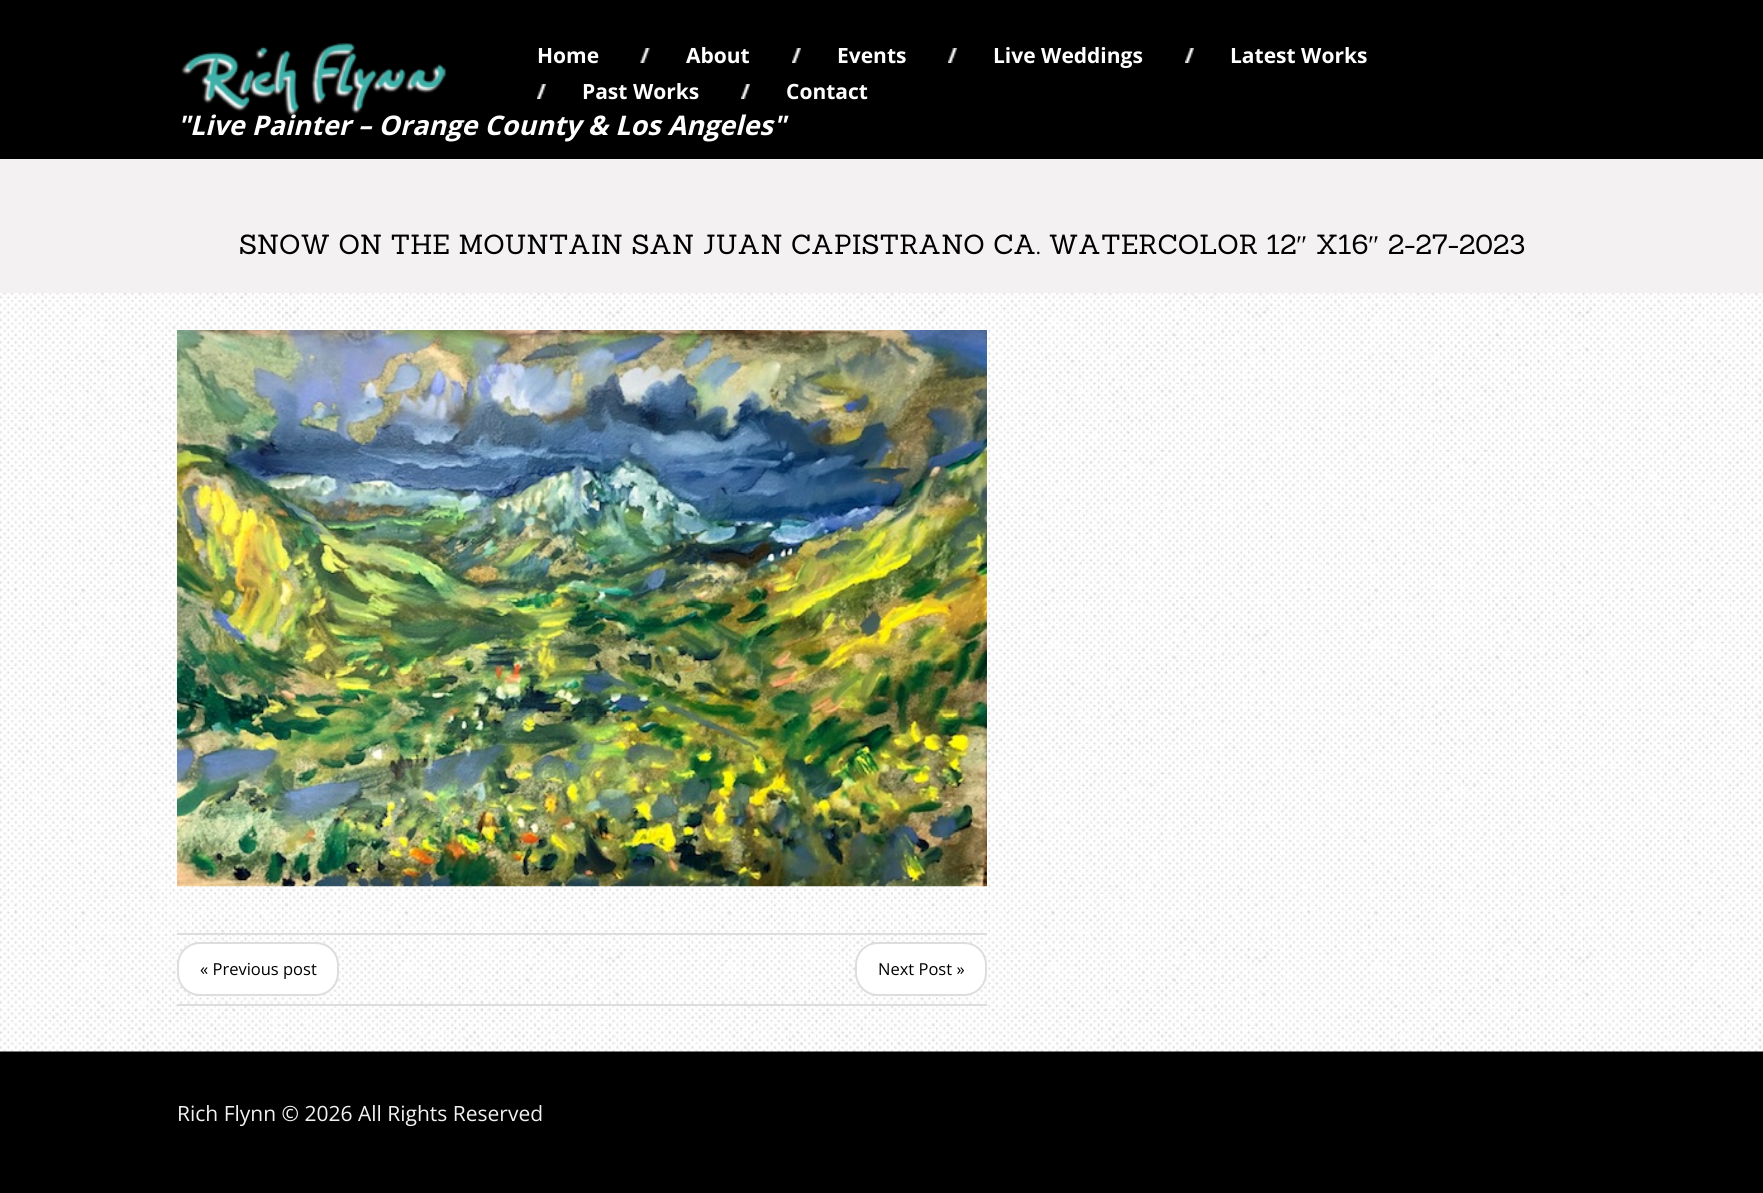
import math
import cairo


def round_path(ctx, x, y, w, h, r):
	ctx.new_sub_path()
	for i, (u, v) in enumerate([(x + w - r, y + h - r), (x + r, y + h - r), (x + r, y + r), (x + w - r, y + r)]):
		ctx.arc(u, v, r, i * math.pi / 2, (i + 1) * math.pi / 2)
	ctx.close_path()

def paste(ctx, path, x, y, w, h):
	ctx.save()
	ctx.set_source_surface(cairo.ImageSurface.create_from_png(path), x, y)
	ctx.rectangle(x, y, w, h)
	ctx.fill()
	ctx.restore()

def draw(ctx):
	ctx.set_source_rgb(0, 0, 0)
	ctx.paint()
	ctx.select_font_face('Open Sans', cairo.FONT_SLANT_NORMAL, cairo.FONT_WEIGHT_BOLD)
	ctx.set_font_size(21)
	ctx.set_source_rgb(1, 1, 1)
	ctx.move_to(537, 63)
	ctx.show_text('Home')
	paste(ctx, 'media/1.png', 640, 48, 10, 15)
	ctx.move_to(686, 63)
	ctx.show_text('About')
	paste(ctx, 'media/2.png', 792, 48, 9, 15)
	ctx.move_to(837, 63)
	ctx.show_text('Events')
	paste(ctx, 'media/2.png', 948, 48, 9, 15)
	ctx.move_to(993, 63)
	ctx.show_text('Live Weddings')
	paste(ctx, 'media/3.png', 1185, 48, 9, 15)
	ctx.move_to(1230, 63)
	ctx.show_text('Latest Works')
	paste(ctx, 'media/2.png', 537, 84, 9, 15)
	ctx.move_to(582, 99)
	ctx.show_text('Past Works')
	paste(ctx, 'media/3.png', 741, 84, 9, 15)
	ctx.move_to(786, 99)
	ctx.show_text('Contact')
	paste(ctx, 'media/4.png', 181, 43, 265, 73)
	ctx.select_font_face('Open Sans', cairo.FONT_SLANT_ITALIC, cairo.FONT_WEIGHT_BOLD)
	ctx.set_font_size(27)
	ctx.move_to(177, 135)
	ctx.show_text('"Live Painter – Orange County & Los Angeles"')
	paste(ctx, 'media/5.png', 0, 293, 1763, 759)
	ctx.set_source_rgb(0.953, 0.945, 0.945)
	ctx.rectangle(0, 159, 1763, 134)
	ctx.fill()
	ctx.select_font_face('Sanchez')
	ctx.set_source_rgb(0, 0, 0)
	ctx.move_to(239, 254)
	ctx.show_text('SNOW ON THE MOUNTAIN SAN JUAN CAPISTRANO CA. WATERCOLOR 12')
	ctx.select_font_face('Liberation Serif')
	ctx.move_to(1296, 254)
	ctx.show_text('″')
	ctx.select_font_face('Sanchez')
	ctx.move_to(1316, 254)
	ctx.show_text('X16')
	ctx.select_font_face('Liberation Serif')
	ctx.move_to(1368, 254)
	ctx.show_text('″')
	ctx.select_font_face('Sanchez')
	ctx.move_to(1388, 254)
	ctx.show_text('2-27-2023')
	paste(ctx, 'media/6.png', 177, 330, 810, 557)
	ctx.set_source_rgb(0.867, 0.867, 0.867)
	ctx.rectangle(177, 933, 810, 2)
	ctx.fill()
	ctx.rectangle(177, 1004, 810, 2)
	ctx.fill()
	ctx.set_source_rgb(1, 1, 1)
	round_path(ctx, 178, 943, 160, 52, 22)
	ctx.fill_preserve()
	ctx.set_source_rgb(0.867, 0.867, 0.867)
	ctx.stroke()
	ctx.select_font_face('Open Sans')
	ctx.set_font_size(16.5)
	ctx.set_source_rgb(0, 0, 0)
	ctx.move_to(200, 975)
	ctx.show_text('« Previous post')
	ctx.set_source_rgb(1, 1, 1)
	round_path(ctx, 856, 943, 130, 52, 22)
	ctx.fill_preserve()
	ctx.set_source_rgb(0.867, 0.867, 0.867)
	ctx.stroke()
	ctx.set_source_rgb(0, 0, 0)
	ctx.move_to(878, 975)
	ctx.show_text('Next Post »')
	ctx.set_font_size(21)
	ctx.set_source_rgb(0.953, 0.945, 0.945)
	ctx.move_to(177, 1121)
	ctx.show_text('Rich Flynn © 2026 All Rights Reserved')


surface = cairo.ImageSurface(cairo.FORMAT_RGB24, 1763, 1193)
ctx = cairo.Context(surface)
options = cairo.FontOptions()
options.set_hint_metrics(cairo.HINT_METRICS_OFF)
options.set_hint_style(cairo.HINT_STYLE_NONE)
ctx.set_font_options(options)
ctx.set_miter_limit(4)
draw(ctx)
surface.write_to_png('image.png')
